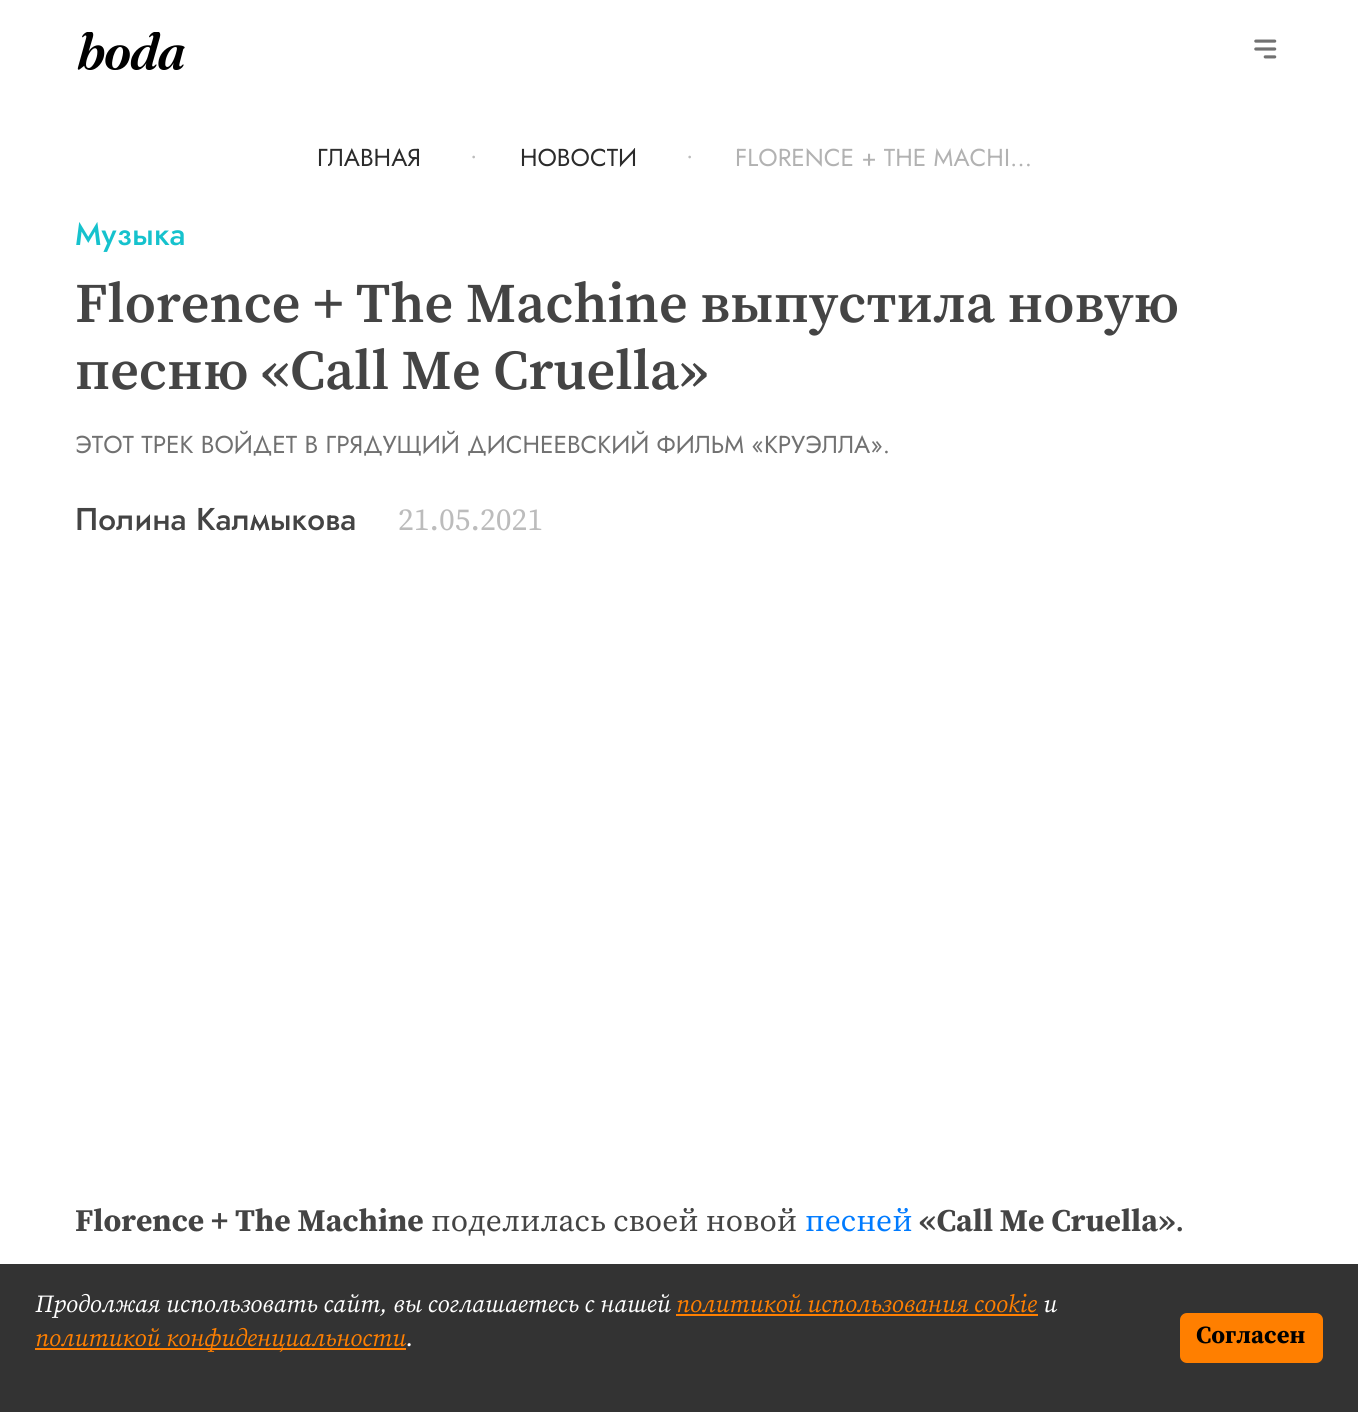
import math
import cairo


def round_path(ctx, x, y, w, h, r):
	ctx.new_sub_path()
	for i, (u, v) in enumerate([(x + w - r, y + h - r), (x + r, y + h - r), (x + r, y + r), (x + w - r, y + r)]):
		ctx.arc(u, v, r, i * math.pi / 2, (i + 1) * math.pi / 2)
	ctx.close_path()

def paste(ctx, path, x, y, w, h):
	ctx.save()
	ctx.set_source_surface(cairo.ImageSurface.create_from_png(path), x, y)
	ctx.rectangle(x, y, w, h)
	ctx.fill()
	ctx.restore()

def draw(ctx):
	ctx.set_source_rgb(1, 1, 1)
	ctx.paint()
	paste(ctx, 'media/1.png', 77, 32, 108, 38)
	paste(ctx, 'media/2.png', 1254, 39, 23, 20)
	ctx.select_font_face('Jost')
	ctx.set_font_size(24.5)
	ctx.set_source_rgb(0.169, 0.169, 0.169)
	ctx.move_to(317, 166)
	ctx.show_text('ГЛАВНАЯ')
	ctx.set_source_rgb(0.737, 0.737, 0.737)
	ctx.move_to(470, 158)
	ctx.show_text('.')
	ctx.set_source_rgb(0.169, 0.169, 0.169)
	ctx.move_to(520, 166)
	ctx.show_text('НОВОСТИ')
	ctx.set_source_rgb(0.737, 0.737, 0.737)
	ctx.move_to(686, 158)
	ctx.show_text('.')
	ctx.set_source_rgb(0.698, 0.698, 0.698)
	ctx.move_to(735, 166)
	ctx.show_text('FLORENCE + THE MACHI…')
	ctx.select_font_face('Jost Medium')
	ctx.set_font_size(31.5)
	ctx.set_source_rgb(0.086, 0.761, 0.804)
	ctx.move_to(75, 245)
	ctx.show_text('Музыка')
	ctx.select_font_face('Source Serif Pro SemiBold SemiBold')
	ctx.set_font_size(56)
	ctx.set_source_rgb(0.267, 0.267, 0.267)
	ctx.move_to(75, 322)
	ctx.show_text('Florence + The Machine выпустила новую')
	ctx.move_to(75, 389)
	ctx.show_text('песню «Call Me Cruella»')
	ctx.select_font_face('Jost')
	ctx.set_font_size(24.5)
	ctx.set_source_rgb(0.443, 0.443, 0.443)
	ctx.move_to(75, 453)
	ctx.show_text('ЭТОТ ТРЕК ВОЙДЕТ В ГРЯДУЩИЙ ДИСНЕЕВСКИЙ ФИЛЬМ «КРУЭЛЛА».')
	ctx.select_font_face('Jost Medium')
	ctx.set_font_size(31.5)
	ctx.set_source_rgb(0.267, 0.267, 0.267)
	ctx.move_to(75, 530)
	ctx.show_text('Полина Калмыкова')
	ctx.select_font_face('Source Serif Pro')
	ctx.set_source_rgb(0.737, 0.737, 0.737)
	ctx.move_to(398, 530)
	ctx.show_text('21.05.2021')
	ctx.select_font_face('Source Serif Pro', cairo.FONT_SLANT_NORMAL, cairo.FONT_WEIGHT_BOLD)
	ctx.set_source_rgb(0.267, 0.267, 0.267)
	ctx.move_to(75, 1231)
	ctx.show_text('Florence + The Machine')
	ctx.select_font_face('Source Serif Pro')
	ctx.move_to(431, 1231)
	ctx.show_text('поделилась своей новой')
	ctx.set_source_rgb(0, 0.482, 1)
	ctx.move_to(805, 1231)
	ctx.show_text('песней')
	ctx.select_font_face('Source Serif Pro', cairo.FONT_SLANT_NORMAL, cairo.FONT_WEIGHT_BOLD)
	ctx.set_source_rgb(0.267, 0.267, 0.267)
	ctx.move_to(919, 1231)
	ctx.show_text('«Call Me Cruella»')
	ctx.select_font_face('Source Serif Pro')
	ctx.move_to(1175, 1231)
	ctx.show_text('.')
	ctx.set_source_rgba(0, 0, 0, 0.8)
	ctx.rectangle(0, 1264, 1358, 148)
	ctx.fill()
	ctx.select_font_face('Source Serif Pro', cairo.FONT_SLANT_ITALIC)
	ctx.set_font_size(24.5)
	ctx.set_source_rgb(1, 1, 1)
	ctx.move_to(35, 1312)
	ctx.show_text('Продолжая использовать сайт, вы соглашаетесь с нашей')
	ctx.set_source_rgb(1, 0.498, 0)
	ctx.move_to(676, 1312)
	ctx.show_text('политикой использования cookie')
	ctx.rectangle(676, 1314, 362, 2)
	ctx.fill()
	ctx.set_source_rgb(1, 1, 1)
	ctx.move_to(1043, 1312)
	ctx.show_text('и')
	ctx.set_source_rgb(1, 0.498, 0)
	ctx.rectangle(35, 1348, 371, 2)
	ctx.fill()
	ctx.move_to(35, 1346)
	ctx.show_text('политикой конфиденциальности')
	ctx.set_source_rgb(1, 1, 1)
	ctx.move_to(406, 1346)
	ctx.show_text('.')
	ctx.set_source_rgb(1, 0.498, 0)
	round_path(ctx, 1180, 1313, 143, 50, 7)
	ctx.fill()
	ctx.select_font_face('Source Serif Pro', cairo.FONT_SLANT_NORMAL, cairo.FONT_WEIGHT_BOLD)
	ctx.set_source_rgb(0, 0, 0)
	ctx.move_to(1196, 1343)
	ctx.show_text('Согласен')


surface = cairo.ImageSurface(cairo.FORMAT_RGB24, 1358, 1412)
ctx = cairo.Context(surface)
options = cairo.FontOptions()
options.set_hint_metrics(cairo.HINT_METRICS_OFF)
options.set_hint_style(cairo.HINT_STYLE_NONE)
ctx.set_font_options(options)
ctx.set_miter_limit(4)
draw(ctx)
surface.write_to_png('image.png')
